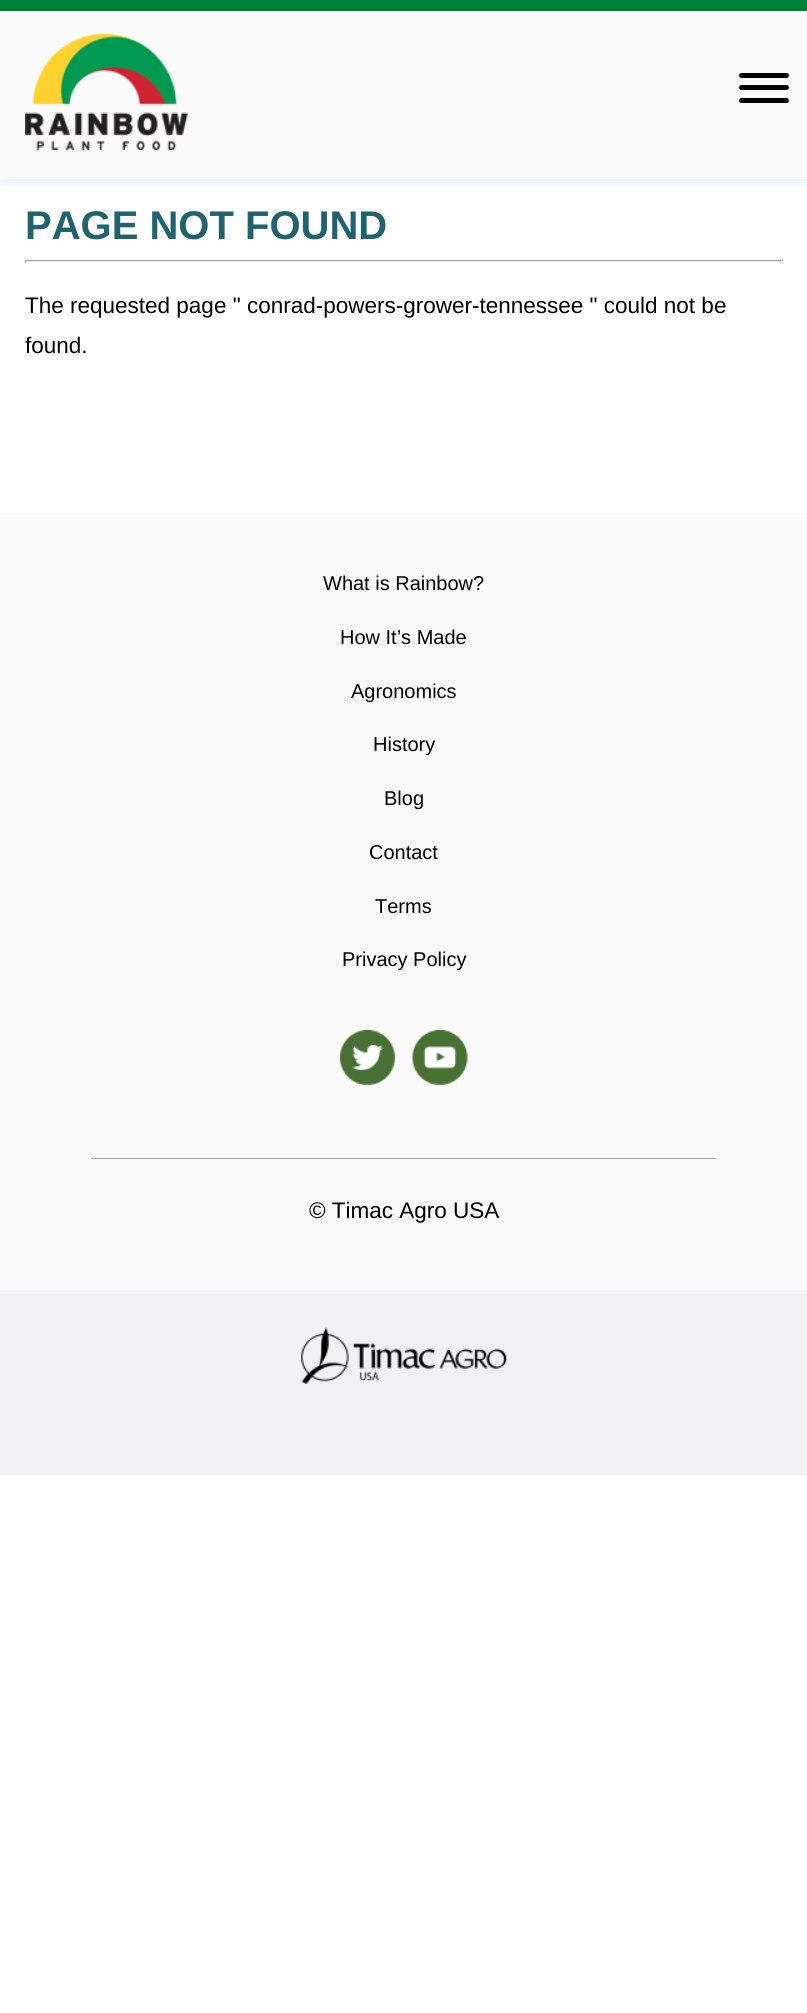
import math
import cairo


def round_path(ctx, x, y, w, h, r):
	ctx.new_sub_path()
	for i, (u, v) in enumerate([(x + w - r, y + h - r), (x + r, y + h - r), (x + r, y + r), (x + w - r, y + r)]):
		ctx.arc(u, v, r, i * math.pi / 2, (i + 1) * math.pi / 2)
	ctx.close_path()

def blur_box(ctx, x, y, w, h, r, blur, alpha):
	ctx.push_group_with_content(cairo.CONTENT_ALPHA)
	ctx.set_operator(cairo.OPERATOR_SOURCE)
	for i in range(15, -16, -2):
		e = blur * i / 6
		if min(w, h) + 2 * e > 0:
			ctx.set_source_rgba(0, 0, 0, alpha * math.erfc((i - 1) / 8.5) / 2)
			round_path(ctx, x - e, y - e, w + 2 * e, h + 2 * e, max(0, min(r + e + blur * .6, min(w, h) / 2 + e)))
			ctx.fill()
	ctx.mask(ctx.pop_group())

def paste(ctx, path, x, y, w, h):
	ctx.save()
	ctx.set_source_surface(cairo.ImageSurface.create_from_png(path), x, y)
	ctx.rectangle(x, y, w, h)
	ctx.fill()
	ctx.restore()

def draw(ctx):
	ctx.set_source_rgb(1, 1, 1)
	ctx.paint()
	ctx.set_source_rgb(0.824, 0.89, 0.969)
	blur_box(ctx, 0, 1, 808, 179, 0, 5.5, 1)
	ctx.set_source_rgb(0.98, 0.98, 0.98)
	ctx.rectangle(0, 11, 807, 168)
	ctx.fill()
	ctx.set_source_rgb(0, 0.502, 0.224)
	ctx.rectangle(0, 0, 807, 11)
	ctx.fill()
	paste(ctx, 'media/1.png', 25, 33, 163, 117)
	ctx.set_source_rgb(0, 0, 0)
	round_path(ctx, 739, 85, 50, 5, 2.5)
	ctx.fill()
	round_path(ctx, 739, 73, 50, 5, 2.5)
	ctx.fill()
	round_path(ctx, 739, 98, 50, 5, 2.5)
	ctx.fill()
	ctx.select_font_face('Liberation Sans', cairo.FONT_SLANT_NORMAL, cairo.FONT_WEIGHT_BOLD)
	ctx.set_font_size(40)
	ctx.set_source_rgb(0.125, 0.384, 0.431)
	ctx.move_to(25, 239)
	ctx.show_text('PAGE NOT FOUND')
	ctx.set_source_rgb(0.624, 0.624, 0.624)
	ctx.rectangle(25, 260, 758, 1)
	ctx.fill()
	ctx.set_source_rgb(0.933, 0.933, 0.933)
	ctx.rectangle(781, 260, 1, 3)
	ctx.rectangle(25, 261, 758, 1)
	ctx.fill()
	ctx.set_source_rgb(0.624, 0.624, 0.624)
	ctx.rectangle(25, 260, 1, 3)
	ctx.fill()
	ctx.select_font_face('Liberation Sans')
	ctx.set_font_size(22.5)
	ctx.set_source_rgb(0, 0, 0)
	ctx.move_to(25, 313)
	ctx.show_text('The requested page " conrad-powers-grower-tennessee " could not be')
	ctx.move_to(25, 353)
	ctx.show_text('found.')
	ctx.set_source_rgb(0.98, 0.98, 0.98)
	ctx.rectangle(0, 513, 807, 777)
	ctx.fill()
	ctx.set_font_size(20)
	ctx.set_source_rgb(0, 0, 0)
	for x, y, s in [
		(323, 590, 'What is Rainbow?'),
		(340, 644, 'How It’s Made'),
		(351, 698, 'Agronomics'),
		(373, 751, 'History'),
		(384, 805, 'Blog'),
		(369, 859, 'Contact'),
		(375, 913, 'Terms'),
		(342, 966, 'Privacy Policy'),
	]:
		ctx.move_to(x, y)
		ctx.show_text(s)
	paste(ctx, 'media/2.png', 340, 1030, 55, 55)
	paste(ctx, 'media/3.png', 412, 1030, 56, 55)
	ctx.set_source_rgb(0.635, 0.631, 0.631)
	ctx.rectangle(91, 1158, 625, 1)
	ctx.fill()
	ctx.set_font_size(22.5)
	ctx.set_source_rgb(0, 0, 0)
	ctx.move_to(309, 1218)
	ctx.show_text('© Timac Agro USA')
	ctx.set_source_rgb(0.945, 0.941, 0.949)
	ctx.rectangle(0, 1290, 807, 185)
	ctx.fill()
	paste(ctx, 'media/4.png', 301, 1327, 206, 57)


surface = cairo.ImageSurface(cairo.FORMAT_RGB24, 807, 2013)
ctx = cairo.Context(surface)
options = cairo.FontOptions()
options.set_hint_metrics(cairo.HINT_METRICS_OFF)
options.set_hint_style(cairo.HINT_STYLE_NONE)
ctx.set_font_options(options)
ctx.set_miter_limit(4)
draw(ctx)
surface.write_to_png('image.png')
